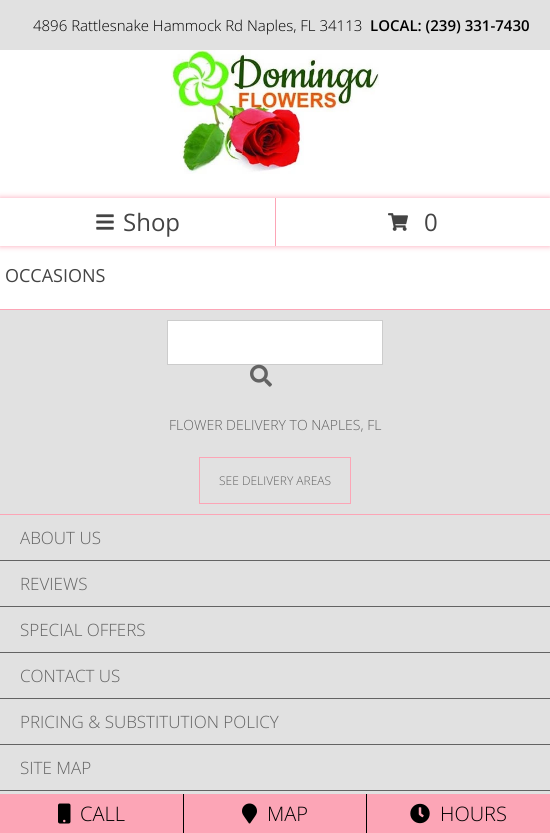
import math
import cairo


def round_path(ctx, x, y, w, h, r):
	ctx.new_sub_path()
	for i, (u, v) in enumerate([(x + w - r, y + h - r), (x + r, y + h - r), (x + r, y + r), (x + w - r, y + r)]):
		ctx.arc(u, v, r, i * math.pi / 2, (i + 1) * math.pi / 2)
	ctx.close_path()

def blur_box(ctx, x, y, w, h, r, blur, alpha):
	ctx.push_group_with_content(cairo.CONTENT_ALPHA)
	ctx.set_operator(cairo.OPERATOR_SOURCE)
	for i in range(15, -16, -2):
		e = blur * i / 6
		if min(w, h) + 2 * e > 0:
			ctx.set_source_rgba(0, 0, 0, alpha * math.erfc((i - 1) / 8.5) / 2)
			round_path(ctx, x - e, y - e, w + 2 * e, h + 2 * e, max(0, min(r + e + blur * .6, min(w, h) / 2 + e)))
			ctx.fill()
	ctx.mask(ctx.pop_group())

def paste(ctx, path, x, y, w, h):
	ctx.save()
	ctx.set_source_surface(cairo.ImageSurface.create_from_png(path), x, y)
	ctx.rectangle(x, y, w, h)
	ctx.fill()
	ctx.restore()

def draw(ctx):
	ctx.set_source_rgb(1, 1, 1)
	ctx.paint()
	ctx.set_source_rgb(0.882, 0.882, 0.882)
	ctx.rectangle(0, 0, 550, 50)
	ctx.fill()
	ctx.select_font_face('Open Sans Light')
	ctx.set_font_size(15)
	ctx.set_source_rgb(0, 0, 0)
	ctx.move_to(33, 31)
	ctx.show_text('4896 Rattlesnake Hammock Rd Naples, FL 34113')
	ctx.select_font_face('Open Sans SemiBold')
	ctx.move_to(370, 31)
	ctx.show_text('LOCAL: (239) 331-7430')
	paste(ctx, 'media/1.png', 171, 50, 208, 124)
	ctx.set_source_rgb(0.988, 0.647, 0.714)
	blur_box(ctx, 0, 198, 550, 48, 0, 3, 1)
	ctx.set_source_rgb(0.988, 0.647, 0.714)
	ctx.rectangle(275, 198, 1, 48)
	ctx.fill()
	ctx.set_source_rgb(1, 1, 1)
	ctx.rectangle(0, 198, 275, 48)
	ctx.fill()
	paste(ctx, 'media/2.png', 96, 214, 18, 16)
	ctx.select_font_face('Open Sans')
	ctx.set_font_size(24)
	ctx.set_source_rgb(0.267, 0.267, 0.267)
	ctx.move_to(123, 231)
	ctx.show_text('Shop')
	ctx.set_source_rgb(1, 1, 1)
	ctx.rectangle(276, 198, 274, 48)
	ctx.fill()
	paste(ctx, 'media/3.png', 388, 213, 20, 18)
	ctx.set_source_rgb(0.267, 0.267, 0.267)
	ctx.move_to(424, 231)
	ctx.show_text('0')
	ctx.set_font_size(18)
	ctx.move_to(5, 282)
	ctx.show_text('OCCASIONS')
	ctx.set_source_rgb(0.882, 0.882, 0.882)
	ctx.rectangle(0, 310, 550, 204)
	ctx.fill()
	ctx.set_source_rgb(0.988, 0.647, 0.714)
	ctx.rectangle(0, 309, 550, 1)
	ctx.rectangle(0, 514, 550, 1)
	ctx.fill()
	ctx.set_source_rgb(1, 1, 1)
	ctx.rectangle(167.5, 320.5, 215, 44)
	ctx.fill_preserve()
	ctx.set_source_rgb(0.8, 0.8, 0.8)
	ctx.set_line_width(1)
	ctx.stroke()
	paste(ctx, 'media/4.png', 250, 364, 22, 23)
	ctx.select_font_face('Open Sans Light')
	ctx.set_font_size(14)
	ctx.set_source_rgb(0.388, 0.388, 0.388)
	ctx.move_to(169, 430)
	ctx.show_text('FLOWER DELIVERY TO NAPLES, FL')
	ctx.rectangle(199.5, 457.5, 151, 46)
	ctx.set_source_rgb(0.988, 0.647, 0.714)
	ctx.stroke()
	ctx.set_font_size(12)
	ctx.set_source_rgb(0.388, 0.388, 0.388)
	ctx.move_to(219, 485)
	ctx.show_text('SEE DELIVERY AREAS')
	ctx.set_source_rgb(0.882, 0.882, 0.882)
	ctx.rectangle(0, 515, 550, 279)
	ctx.fill()
	ctx.set_source_rgb(0.388, 0.388, 0.388)
	ctx.rectangle(0, 560, 550, 1)
	ctx.fill()
	ctx.set_font_size(17)
	ctx.move_to(20, 544)
	ctx.show_text('ABOUT US')
	ctx.rectangle(0, 606, 550, 1)
	ctx.fill()
	ctx.move_to(20, 590)
	ctx.show_text('REVIEWS')
	ctx.rectangle(0, 652, 550, 1)
	ctx.fill()
	ctx.move_to(20, 636)
	ctx.show_text('SPECIAL OFFERS')
	ctx.rectangle(0, 698, 550, 1)
	ctx.fill()
	ctx.move_to(20, 682)
	ctx.show_text('CONTACT US')
	ctx.rectangle(0, 744, 550, 1)
	ctx.fill()
	ctx.move_to(20, 728)
	ctx.show_text('PRICING & SUBSTITUTION POLICY')
	ctx.rectangle(0, 790, 550, 1)
	ctx.fill()
	ctx.move_to(20, 774)
	ctx.show_text('SITE MAP')
	ctx.set_source_rgb(0.988, 0.647, 0.714)
	ctx.rectangle(0, 794, 183, 39)
	ctx.fill()
	paste(ctx, 'media/5.png', 58, 803, 13, 21)
	ctx.set_font_size(20)
	ctx.set_source_rgb(0, 0, 0)
	ctx.move_to(80, 821)
	ctx.show_text('CALL')
	ctx.set_source_rgb(0.988, 0.647, 0.714)
	ctx.rectangle(184, 794, 182, 39)
	ctx.fill()
	ctx.set_source_rgb(0, 0, 0)
	ctx.rectangle(183, 794, 1, 39)
	ctx.fill()
	paste(ctx, 'media/6.png', 242, 803, 15, 21)
	ctx.move_to(267, 821)
	ctx.show_text('MAP')
	ctx.set_source_rgb(0.988, 0.647, 0.714)
	ctx.rectangle(367, 794, 183, 39)
	ctx.fill()
	ctx.set_source_rgb(0, 0, 0)
	ctx.rectangle(366, 794, 1, 39)
	ctx.fill()
	paste(ctx, 'media/7.png', 410, 803, 20, 21)
	ctx.move_to(440, 821)
	ctx.show_text('HOURS')


surface = cairo.ImageSurface(cairo.FORMAT_RGB24, 550, 833)
ctx = cairo.Context(surface)
options = cairo.FontOptions()
options.set_hint_metrics(cairo.HINT_METRICS_OFF)
options.set_hint_style(cairo.HINT_STYLE_NONE)
ctx.set_font_options(options)
ctx.set_miter_limit(4)
draw(ctx)
surface.write_to_png('image.png')
